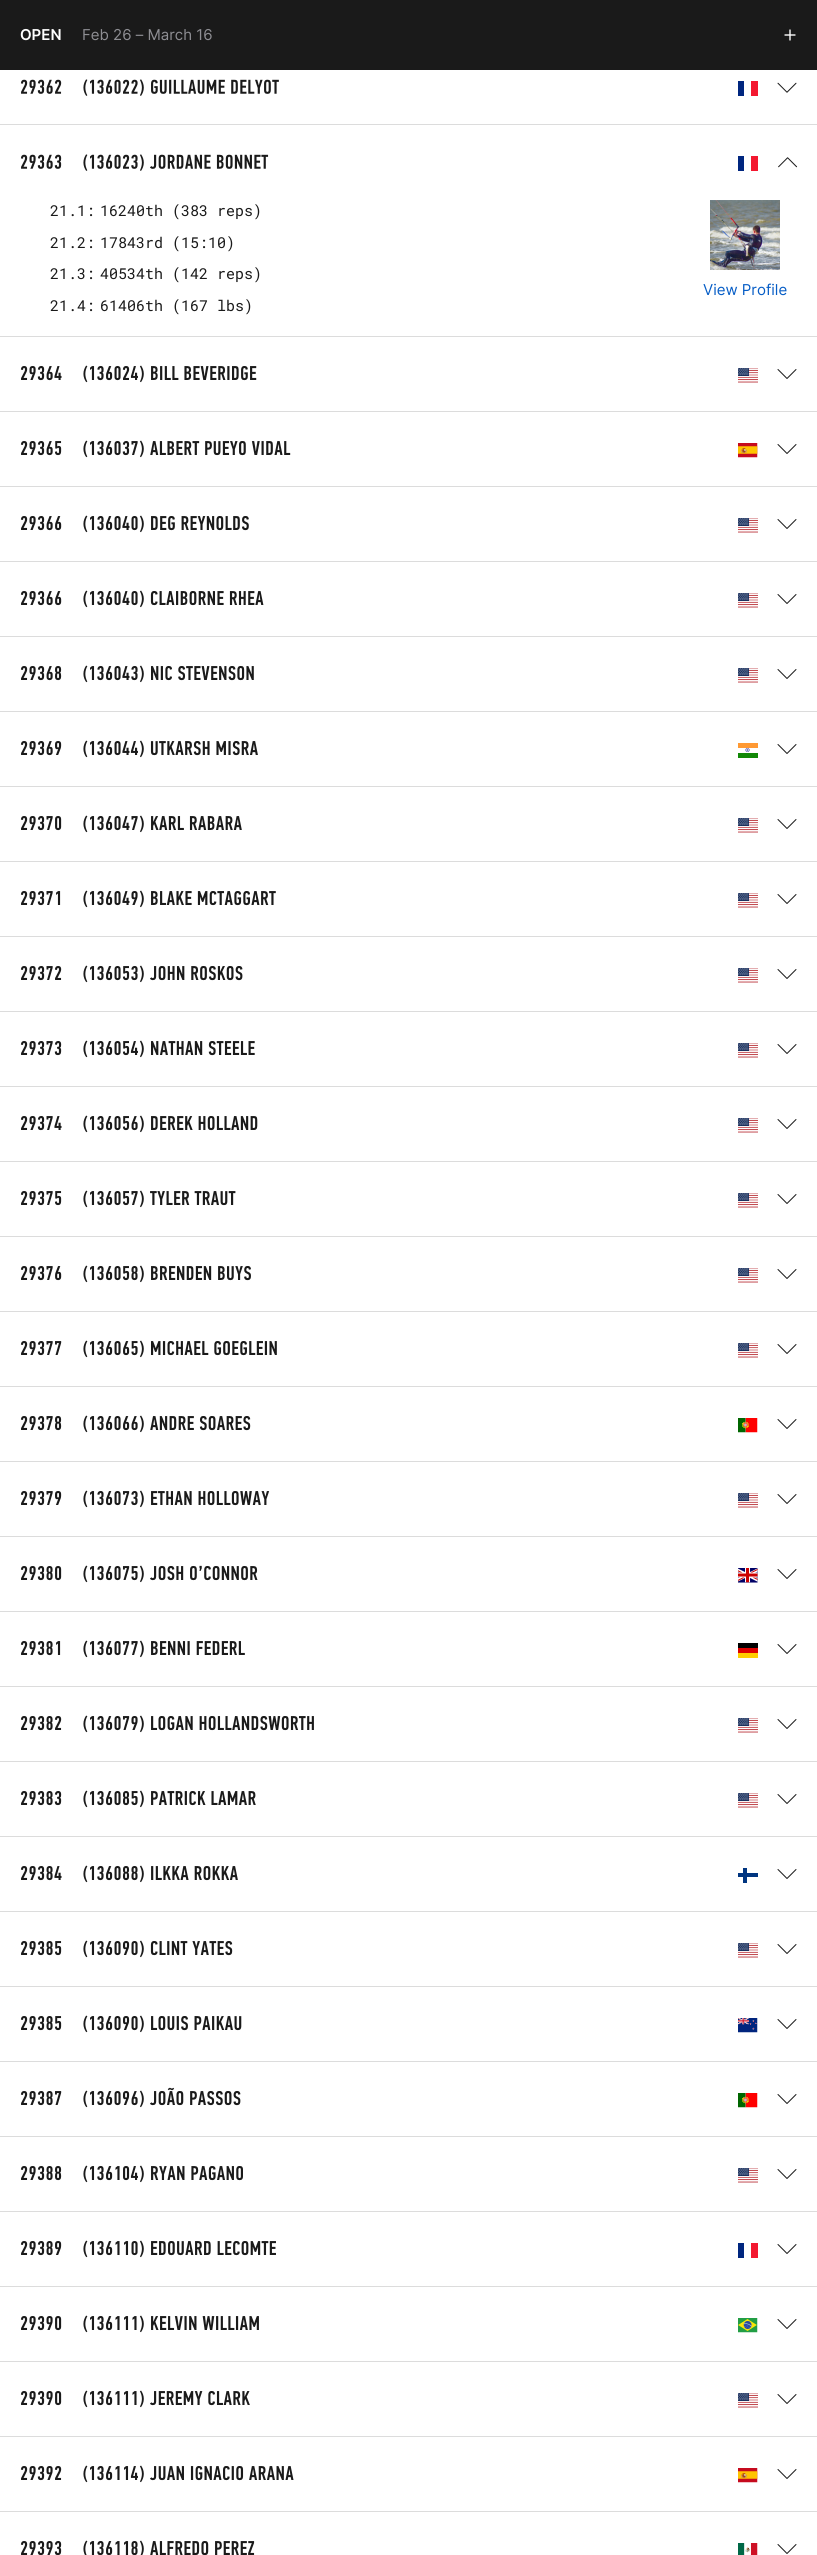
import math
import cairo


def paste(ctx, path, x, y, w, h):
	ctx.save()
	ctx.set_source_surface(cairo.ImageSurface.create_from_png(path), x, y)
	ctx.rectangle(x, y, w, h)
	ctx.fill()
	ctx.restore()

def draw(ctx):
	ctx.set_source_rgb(1, 1, 1)
	ctx.paint()
	ctx.set_source_rgb(0.102, 0.102, 0.102)
	ctx.rectangle(0, 0, 817, 70)
	ctx.fill()
	ctx.select_font_face('Inter SemiBold')
	ctx.set_font_size(15)
	ctx.set_source_rgb(1, 1, 1)
	ctx.move_to(20, 40)
	ctx.show_text('OPEN')
	ctx.select_font_face('Inter')
	ctx.set_source_rgb(0.557, 0.557, 0.576)
	ctx.move_to(82, 40)
	ctx.show_text('Feb 26 – March 16')
	paste(ctx, 'media/1.png', 784, 29, 12, 12)
	ctx.set_source_rgb(0.863, 0.863, 0.863)
	ctx.rectangle(0, 124, 817, 1)
	ctx.fill()
	paste(ctx, 'media/2.png', 20, 79, 42, 15)
	paste(ctx, 'media/3.png', 83, 79, 61, 17)
	paste(ctx, 'media/4.png', 151, 79, 128, 15)
	ctx.set_source_rgb(0, 0.149, 0.498)
	ctx.rectangle(738, 81, 6, 15)
	ctx.fill()
	ctx.set_source_rgb(0.953, 0.094, 0.188)
	ctx.rectangle(751, 81, 7, 15)
	ctx.fill()
	paste(ctx, 'media/5.png', 777, 82, 20, 11)
	paste(ctx, 'media/6.png', 20, 154, 42, 15)
	paste(ctx, 'media/7.png', 83, 154, 61, 17)
	paste(ctx, 'media/8.png', 150, 154, 119, 15)
	ctx.set_source_rgb(0, 0.149, 0.498)
	ctx.rectangle(738, 156, 6, 15)
	ctx.fill()
	ctx.set_source_rgb(0.953, 0.094, 0.188)
	ctx.rectangle(751, 156, 7, 15)
	ctx.fill()
	paste(ctx, 'media/9.png', 778, 157, 20, 11)
	ctx.set_source_rgb(0.863, 0.863, 0.863)
	ctx.rectangle(0, 336, 817, 1)
	ctx.fill()
	ctx.select_font_face('Roboto Mono')
	ctx.set_source_rgb(0.102, 0.102, 0.102)
	for x, y, s in [
		(50, 216, '21.1:'),
		(100, 216, '16240th (383 reps)'),
		(50, 248, '21.2:'),
		(100, 248, '17843rd (15:10)'),
		(50, 279, '21.3:'),
		(100, 279, '40534th (142 reps)'),
		(50, 311, '21.4:'),
		(100, 311, '61406th (167 lbs)'),
	]:
		ctx.move_to(x, y)
		ctx.show_text(s)
	paste(ctx, 'media/10.png', 710, 200, 70, 70)
	ctx.select_font_face('Inter')
	ctx.set_source_rgb(0.027, 0.365, 0.776)
	ctx.move_to(703, 295)
	ctx.show_text('View Profile')
	ctx.set_source_rgb(0.863, 0.863, 0.863)
	ctx.rectangle(0, 411, 817, 1)
	ctx.fill()
	paste(ctx, 'media/11.png', 20, 366, 42, 15)
	paste(ctx, 'media/12.png', 83, 365, 61, 18)
	paste(ctx, 'media/13.png', 151, 366, 106, 15)
	paste(ctx, 'media/14.png', 738, 368, 20, 15)
	paste(ctx, 'media/15.png', 777, 369, 20, 10)
	ctx.rectangle(0, 486, 817, 1)
	ctx.fill()
	paste(ctx, 'media/16.png', 20, 441, 42, 15)
	paste(ctx, 'media/17.png', 83, 440, 61, 18)
	paste(ctx, 'media/18.png', 150, 441, 141, 15)
	paste(ctx, 'media/19.png', 738, 443, 20, 15)
	paste(ctx, 'media/15.png', 777, 444, 20, 10)
	ctx.rectangle(0, 561, 817, 1)
	ctx.fill()
	paste(ctx, 'media/20.png', 20, 516, 42, 15)
	paste(ctx, 'media/21.png', 83, 515, 61, 18)
	paste(ctx, 'media/22.png', 151, 516, 98, 15)
	paste(ctx, 'media/14.png', 738, 518, 20, 15)
	paste(ctx, 'media/15.png', 777, 519, 20, 10)
	ctx.rectangle(0, 636, 817, 1)
	ctx.fill()
	paste(ctx, 'media/20.png', 20, 591, 42, 15)
	paste(ctx, 'media/21.png', 83, 590, 61, 18)
	paste(ctx, 'media/23.png', 150, 591, 114, 15)
	paste(ctx, 'media/14.png', 738, 593, 20, 15)
	paste(ctx, 'media/15.png', 777, 594, 20, 10)
	ctx.rectangle(0, 711, 817, 1)
	ctx.fill()
	paste(ctx, 'media/24.png', 20, 666, 42, 15)
	paste(ctx, 'media/25.png', 83, 665, 61, 18)
	paste(ctx, 'media/26.png', 151, 666, 103, 15)
	paste(ctx, 'media/14.png', 738, 668, 20, 15)
	paste(ctx, 'media/15.png', 777, 669, 20, 10)
	ctx.rectangle(0, 786, 817, 1)
	ctx.fill()
	paste(ctx, 'media/27.png', 20, 741, 42, 15)
	paste(ctx, 'media/28.png', 83, 740, 61, 18)
	paste(ctx, 'media/29.png', 150, 741, 108, 15)
	paste(ctx, 'media/30.png', 738, 743, 20, 15)
	paste(ctx, 'media/15.png', 777, 744, 20, 10)
	ctx.rectangle(0, 861, 817, 1)
	ctx.fill()
	paste(ctx, 'media/31.png', 20, 816, 42, 15)
	paste(ctx, 'media/32.png', 83, 815, 61, 18)
	paste(ctx, 'media/33.png', 151, 816, 91, 14)
	paste(ctx, 'media/14.png', 738, 818, 20, 15)
	paste(ctx, 'media/15.png', 777, 819, 20, 10)
	ctx.rectangle(0, 936, 817, 1)
	ctx.fill()
	paste(ctx, 'media/34.png', 20, 891, 41, 15)
	paste(ctx, 'media/35.png', 83, 890, 61, 18)
	paste(ctx, 'media/36.png', 151, 891, 125, 15)
	paste(ctx, 'media/14.png', 738, 893, 20, 15)
	paste(ctx, 'media/15.png', 777, 894, 20, 10)
	ctx.rectangle(0, 1011, 817, 1)
	ctx.fill()
	paste(ctx, 'media/37.png', 20, 966, 42, 15)
	paste(ctx, 'media/38.png', 83, 965, 61, 18)
	paste(ctx, 'media/39.png', 150, 966, 93, 15)
	paste(ctx, 'media/14.png', 738, 968, 20, 15)
	paste(ctx, 'media/15.png', 777, 969, 20, 10)
	ctx.rectangle(0, 1086, 817, 1)
	ctx.fill()
	paste(ctx, 'media/40.png', 20, 1041, 42, 15)
	paste(ctx, 'media/41.png', 83, 1040, 61, 18)
	paste(ctx, 'media/42.png', 151, 1041, 104, 15)
	paste(ctx, 'media/14.png', 738, 1043, 20, 15)
	paste(ctx, 'media/15.png', 777, 1044, 20, 10)
	ctx.rectangle(0, 1161, 817, 1)
	ctx.fill()
	paste(ctx, 'media/43.png', 20, 1116, 42, 15)
	paste(ctx, 'media/44.png', 83, 1115, 61, 18)
	paste(ctx, 'media/45.png', 151, 1116, 107, 15)
	paste(ctx, 'media/14.png', 738, 1118, 20, 15)
	paste(ctx, 'media/15.png', 777, 1119, 20, 10)
	ctx.rectangle(0, 1236, 817, 1)
	ctx.fill()
	paste(ctx, 'media/46.png', 20, 1191, 42, 15)
	paste(ctx, 'media/47.png', 83, 1190, 61, 18)
	paste(ctx, 'media/48.png', 150, 1191, 86, 15)
	paste(ctx, 'media/14.png', 738, 1193, 20, 15)
	paste(ctx, 'media/15.png', 777, 1194, 20, 10)
	ctx.rectangle(0, 1311, 817, 1)
	ctx.fill()
	paste(ctx, 'media/49.png', 20, 1266, 42, 15)
	paste(ctx, 'media/50.png', 83, 1265, 61, 18)
	paste(ctx, 'media/51.png', 151, 1266, 100, 15)
	paste(ctx, 'media/14.png', 738, 1268, 20, 15)
	paste(ctx, 'media/15.png', 777, 1269, 20, 10)
	ctx.rectangle(0, 1386, 817, 1)
	ctx.fill()
	paste(ctx, 'media/52.png', 20, 1341, 42, 15)
	paste(ctx, 'media/53.png', 83, 1340, 61, 18)
	paste(ctx, 'media/54.png', 151, 1341, 126, 15)
	paste(ctx, 'media/14.png', 738, 1343, 20, 15)
	paste(ctx, 'media/15.png', 777, 1344, 20, 10)
	ctx.rectangle(0, 1461, 817, 1)
	ctx.fill()
	paste(ctx, 'media/55.png', 20, 1416, 42, 15)
	paste(ctx, 'media/56.png', 83, 1415, 61, 18)
	paste(ctx, 'media/57.png', 150, 1416, 101, 15)
	paste(ctx, 'media/58.png', 738, 1418, 20, 15)
	paste(ctx, 'media/15.png', 777, 1419, 20, 10)
	ctx.rectangle(0, 1536, 817, 1)
	ctx.fill()
	paste(ctx, 'media/59.png', 20, 1491, 42, 15)
	paste(ctx, 'media/60.png', 83, 1490, 61, 18)
	paste(ctx, 'media/61.png', 151, 1491, 119, 15)
	paste(ctx, 'media/14.png', 738, 1493, 20, 15)
	paste(ctx, 'media/15.png', 777, 1494, 20, 10)
	ctx.rectangle(0, 1611, 817, 1)
	ctx.fill()
	paste(ctx, 'media/62.png', 20, 1566, 42, 15)
	paste(ctx, 'media/63.png', 83, 1565, 61, 18)
	paste(ctx, 'media/64.png', 150, 1565, 108, 16)
	paste(ctx, 'media/65.png', 738, 1568, 20, 15)
	paste(ctx, 'media/15.png', 777, 1569, 20, 10)
	ctx.rectangle(0, 1686, 817, 1)
	ctx.fill()
	paste(ctx, 'media/66.png', 20, 1641, 41, 15)
	paste(ctx, 'media/67.png', 83, 1640, 61, 18)
	paste(ctx, 'media/68.png', 151, 1641, 94, 14)
	ctx.set_source_rgb(0, 0, 0)
	ctx.rectangle(738, 1643, 20, 5)
	ctx.fill()
	ctx.set_source_rgb(0.867, 0, 0)
	ctx.rectangle(738, 1648, 20, 5)
	ctx.fill()
	ctx.set_source_rgb(1, 0.808, 0)
	ctx.rectangle(738, 1653, 20, 5)
	ctx.fill()
	paste(ctx, 'media/15.png', 777, 1644, 20, 10)
	ctx.set_source_rgb(0.863, 0.863, 0.863)
	ctx.rectangle(0, 1761, 817, 1)
	ctx.fill()
	paste(ctx, 'media/69.png', 20, 1716, 42, 15)
	paste(ctx, 'media/70.png', 83, 1715, 61, 18)
	paste(ctx, 'media/71.png', 151, 1716, 163, 15)
	paste(ctx, 'media/14.png', 738, 1718, 20, 15)
	paste(ctx, 'media/15.png', 777, 1719, 20, 10)
	ctx.rectangle(0, 1836, 817, 1)
	ctx.fill()
	paste(ctx, 'media/72.png', 20, 1791, 42, 15)
	paste(ctx, 'media/73.png', 83, 1790, 61, 18)
	paste(ctx, 'media/74.png', 151, 1791, 105, 15)
	paste(ctx, 'media/14.png', 738, 1793, 20, 15)
	paste(ctx, 'media/15.png', 777, 1794, 20, 10)
	ctx.rectangle(0, 1911, 817, 1)
	ctx.fill()
	paste(ctx, 'media/75.png', 20, 1866, 42, 15)
	paste(ctx, 'media/76.png', 83, 1865, 61, 18)
	paste(ctx, 'media/77.png', 151, 1866, 87, 15)
	ctx.set_source_rgb(0, 0.208, 0.502)
	ctx.rectangle(738, 1873, 20, 4)
	ctx.fill()
	ctx.rectangle(743, 1868, 4, 15)
	ctx.fill()
	paste(ctx, 'media/15.png', 777, 1869, 20, 10)
	ctx.set_source_rgb(0.863, 0.863, 0.863)
	ctx.rectangle(0, 1986, 817, 1)
	ctx.fill()
	paste(ctx, 'media/78.png', 20, 1941, 42, 15)
	paste(ctx, 'media/79.png', 83, 1940, 61, 18)
	paste(ctx, 'media/80.png', 150, 1941, 83, 15)
	paste(ctx, 'media/14.png', 738, 1943, 20, 15)
	paste(ctx, 'media/15.png', 777, 1944, 20, 10)
	ctx.rectangle(0, 2061, 817, 1)
	ctx.fill()
	paste(ctx, 'media/78.png', 20, 2016, 42, 15)
	paste(ctx, 'media/79.png', 83, 2015, 61, 18)
	paste(ctx, 'media/81.png', 151, 2016, 91, 15)
	paste(ctx, 'media/82.png', 738, 2018, 20, 15)
	paste(ctx, 'media/15.png', 777, 2019, 20, 10)
	ctx.rectangle(0, 2136, 817, 1)
	ctx.fill()
	paste(ctx, 'media/83.png', 20, 2091, 42, 15)
	paste(ctx, 'media/84.png', 83, 2090, 61, 18)
	paste(ctx, 'media/85.png', 150, 2087, 91, 19)
	paste(ctx, 'media/58.png', 738, 2093, 20, 15)
	paste(ctx, 'media/15.png', 777, 2094, 20, 10)
	ctx.rectangle(0, 2211, 817, 1)
	ctx.fill()
	paste(ctx, 'media/86.png', 20, 2166, 42, 15)
	paste(ctx, 'media/87.png', 83, 2165, 61, 18)
	paste(ctx, 'media/88.png', 151, 2166, 92, 15)
	paste(ctx, 'media/14.png', 738, 2168, 20, 15)
	paste(ctx, 'media/15.png', 777, 2169, 20, 10)
	ctx.rectangle(0, 2286, 817, 1)
	ctx.fill()
	paste(ctx, 'media/89.png', 20, 2241, 42, 15)
	paste(ctx, 'media/90.png', 83, 2240, 61, 18)
	paste(ctx, 'media/91.png', 151, 2241, 125, 15)
	ctx.set_source_rgb(0, 0.149, 0.498)
	ctx.rectangle(738, 2243, 6, 15)
	ctx.fill()
	ctx.set_source_rgb(0.953, 0.094, 0.188)
	ctx.rectangle(751, 2243, 7, 15)
	ctx.fill()
	paste(ctx, 'media/15.png', 777, 2244, 20, 10)
	ctx.set_source_rgb(0.863, 0.863, 0.863)
	ctx.rectangle(0, 2361, 817, 1)
	ctx.fill()
	paste(ctx, 'media/92.png', 20, 2316, 42, 15)
	paste(ctx, 'media/93.png', 83, 2315, 61, 18)
	paste(ctx, 'media/94.png', 151, 2316, 108, 14)
	paste(ctx, 'media/95.png', 738, 2318, 20, 15)
	paste(ctx, 'media/15.png', 777, 2319, 20, 10)
	ctx.rectangle(0, 2436, 817, 1)
	ctx.fill()
	paste(ctx, 'media/92.png', 20, 2391, 42, 15)
	paste(ctx, 'media/93.png', 83, 2390, 61, 18)
	paste(ctx, 'media/96.png', 150, 2391, 100, 15)
	paste(ctx, 'media/14.png', 738, 2393, 20, 15)
	paste(ctx, 'media/15.png', 777, 2394, 20, 10)
	ctx.rectangle(0, 2511, 817, 1)
	ctx.fill()
	paste(ctx, 'media/97.png', 20, 2466, 42, 15)
	paste(ctx, 'media/98.png', 83, 2465, 61, 18)
	paste(ctx, 'media/99.png', 150, 2466, 144, 15)
	paste(ctx, 'media/19.png', 738, 2468, 20, 15)
	paste(ctx, 'media/15.png', 777, 2469, 20, 10)
	paste(ctx, 'media/100.png', 20, 2541, 42, 14)
	paste(ctx, 'media/101.png', 83, 2540, 61, 15)
	paste(ctx, 'media/102.png', 150, 2541, 105, 14)
	paste(ctx, 'media/103.png', 738, 2543, 20, 12)
	paste(ctx, 'media/15.png', 777, 2544, 20, 10)


surface = cairo.ImageSurface(cairo.FORMAT_RGB24, 817, 2555)
ctx = cairo.Context(surface)
options = cairo.FontOptions()
options.set_hint_metrics(cairo.HINT_METRICS_OFF)
options.set_hint_style(cairo.HINT_STYLE_NONE)
ctx.set_font_options(options)
ctx.set_miter_limit(4)
draw(ctx)
surface.write_to_png('image.png')
